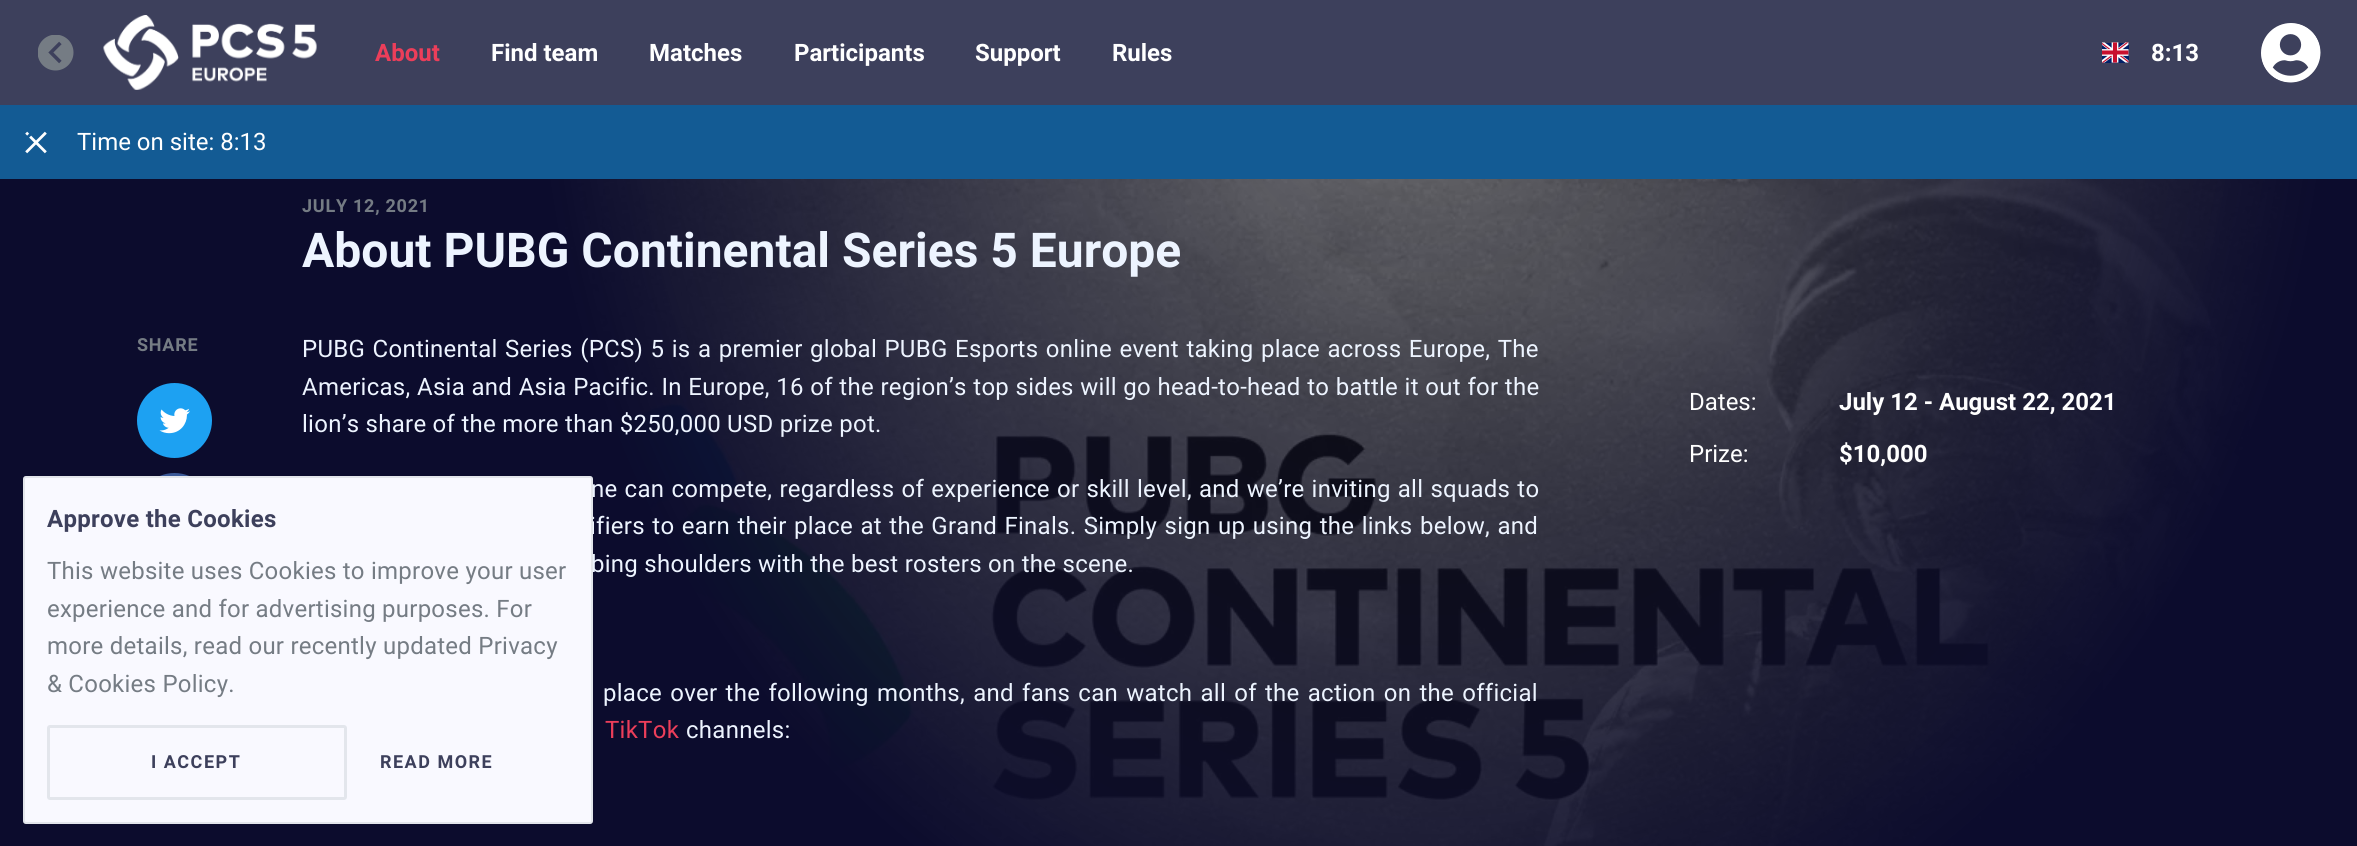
import math
import cairo


def write_spaced(ctx, x, y, s, letter, word):
	ctx.move_to(x, y)
	for ch in s:
		ctx.show_text(ch)
		ctx.rel_move_to(letter + word * (ch == ' '), 0)

def round_path(ctx, x, y, w, h, r):
	ctx.new_sub_path()
	for i, (u, v) in enumerate([(x + w - r, y + h - r), (x + r, y + h - r), (x + r, y + r), (x + w - r, y + r)]):
		ctx.arc(u, v, r, i * math.pi / 2, (i + 1) * math.pi / 2)
	ctx.close_path()

def paste(ctx, path, x, y, w, h):
	ctx.save()
	ctx.set_source_surface(cairo.ImageSurface.create_from_png(path), x, y)
	ctx.rectangle(x, y, w, h)
	ctx.fill()
	ctx.restore()

def draw(ctx):
	ctx.set_source_rgb(1, 1, 1)
	ctx.paint()
	ctx.set_source_rgb(0.239, 0.251, 0.361)
	ctx.rectangle(0, 0, 2357, 105)
	ctx.fill()
	paste(ctx, 'media/1.png', 38, 35, 36, 36)
	paste(ctx, 'media/2.png', 103, 15, 214, 75)
	ctx.select_font_face('Roboto', cairo.FONT_SLANT_NORMAL, cairo.FONT_WEIGHT_BOLD)
	ctx.set_font_size(24)
	ctx.set_source_rgb(0.925, 0.243, 0.353)
	ctx.move_to(375, 61)
	ctx.show_text('About')
	ctx.set_source_rgb(1, 1, 1)
	for x, y, s in [
		(491, 61, 'Find team'),
		(649, 61, 'Matches'),
		(794, 61, 'Participants'),
		(975, 61, 'Support'),
		(1112, 61, 'Rules'),
	]:
		ctx.move_to(x, y)
		ctx.show_text(s)
	paste(ctx, 'media/3.png', 2102, 42, 27, 21)
	ctx.move_to(2151, 61)
	ctx.show_text('8:13')
	paste(ctx, 'media/4.png', 2261, 23, 60, 60)
	ctx.set_source_rgb(0.078, 0.357, 0.58)
	ctx.rectangle(0, 105, 2357, 74)
	ctx.fill()
	paste(ctx, 'media/5.png', 25, 131, 22, 23)
	ctx.select_font_face('Roboto')
	ctx.set_source_rgb(1, 1, 1)
	ctx.move_to(77, 150)
	ctx.show_text('Time on site: 8:13')
	paste(ctx, 'media/6.png', 0, 179, 2357, 667)
	ctx.select_font_face('Roboto', cairo.FONT_SLANT_NORMAL, cairo.FONT_WEIGHT_BOLD)
	ctx.set_font_size(18)
	ctx.set_source_rgb(0.459, 0.486, 0.518)
	write_spaced(ctx, 302, 212, 'JULY 12, 2021', 0.75, 0)
	ctx.set_font_size(48)
	ctx.set_source_rgb(0.929, 0.957, 1)
	ctx.move_to(302, 267)
	ctx.show_text('About PUBG Continental Series 5 Europe')
	ctx.set_font_size(18)
	ctx.set_source_rgb(0.459, 0.486, 0.518)
	write_spaced(ctx, 137, 351, 'SHARE', 0.75, 0)
	ctx.set_source_rgb(0.114, 0.631, 0.949)
	ctx.new_path()
	ctx.arc(174.5, 420.5, 37.5, 0, 2 * math.pi)
	ctx.fill()
	paste(ctx, 'media/7.png', 159, 408, 31, 26)
	ctx.set_source_rgb(0.231, 0.349, 0.596)
	ctx.arc(174.5, 510.5, 37.5, 0, 2 * math.pi)
	ctx.fill()
	ctx.select_font_face('Roboto')
	ctx.set_font_size(24)
	ctx.set_source_rgb(0.929, 0.957, 1)
	write_spaced(ctx, 302, 357, 'PUBG Continental Series (PCS) 5 is a premier global PUBG Esports online event taking place across Europe, The', 0.27, 1.25)
	write_spaced(ctx, 302, 395, 'Americas, Asia and Asia Pacific. In Europe, 16 of the region’s top sides will go head-to-head to battle it out for the', 0.27, 0.3)
	write_spaced(ctx, 302, 432, 'lion’s share of the more than $250,000 USD prize pot.', 0.27, 0)
	write_spaced(ctx, 591, 497, 'ne can compete, regardless of experience or skill level, and we’re inviting all squads to', 0.27, 0.9)
	write_spaced(ctx, 590, 534, 'ifiers to earn their place at the Grand Finals. Simply sign up using the links below, and', 0.27, 1.25)
	write_spaced(ctx, 591, 572, 'bing shoulders with the best rosters on the scene.', 0.27, 0)
	write_spaced(ctx, 603, 701, 'place over the following months, and fans can watch all of the action on the official', 0.27, 2)
	ctx.set_source_rgb(0.925, 0.243, 0.353)
	write_spaced(ctx, 605, 738, 'TikTok', 0.27, 0)
	ctx.set_source_rgb(0.929, 0.957, 1)
	write_spaced(ctx, 686, 738, 'channels:', 0.27, 0)
	ctx.set_source_rgb(1, 1, 1)
	ctx.move_to(1689, 410)
	ctx.show_text('Dates:')
	ctx.select_font_face('Roboto', cairo.FONT_SLANT_NORMAL, cairo.FONT_WEIGHT_BOLD)
	ctx.move_to(1839, 410)
	ctx.show_text('July 12 - August 22, 2021')
	ctx.select_font_face('Roboto')
	ctx.move_to(1689, 462)
	ctx.show_text('Prize:')
	ctx.select_font_face('Roboto', cairo.FONT_SLANT_NORMAL, cairo.FONT_WEIGHT_BOLD)
	ctx.move_to(1839, 462)
	ctx.show_text('$10,000')
	ctx.set_source_rgb(0.973, 0.976, 1)
	round_path(ctx, 23, 476, 570, 348, 3)
	ctx.fill()
	round_path(ctx, 24, 477, 568, 346, 2)
	ctx.set_source_rgba(0.561, 0.608, 0.62, 0.2)
	ctx.stroke()
	ctx.set_source_rgb(0.239, 0.251, 0.361)
	write_spaced(ctx, 47, 527, 'Approve the Cookies', 0.27, 0)
	ctx.select_font_face('Roboto')
	ctx.set_source_rgb(0.459, 0.486, 0.518)
	for x, y, s in [
		(47, 579, 'This website uses Cookies to improve your user'),
		(47, 617, 'experience and for advertising purposes. For'),
		(47, 654, 'more details, read our recently updated Privacy'),
		(47, 692, '& Cookies Policy.'),
	]:
		write_spaced(ctx, x, y, s, 0.25, 0)
	round_path(ctx, 48.5, 726.5, 297, 72, 1.5)
	ctx.set_source_rgb(0.89, 0.902, 0.925)
	ctx.set_line_width(3)
	ctx.stroke()
	ctx.select_font_face('Roboto', cairo.FONT_SLANT_NORMAL, cairo.FONT_WEIGHT_BOLD)
	ctx.set_font_size(18)
	ctx.set_source_rgb(0.239, 0.251, 0.361)
	write_spaced(ctx, 151, 768, 'I ACCEPT', 1.5, 0)
	write_spaced(ctx, 380, 768, 'READ MORE', 1.5, 0)


surface = cairo.ImageSurface(cairo.FORMAT_RGB24, 2357, 846)
ctx = cairo.Context(surface)
options = cairo.FontOptions()
options.set_hint_metrics(cairo.HINT_METRICS_OFF)
options.set_hint_style(cairo.HINT_STYLE_NONE)
ctx.set_font_options(options)
ctx.set_miter_limit(4)
draw(ctx)
surface.write_to_png('image.png')
